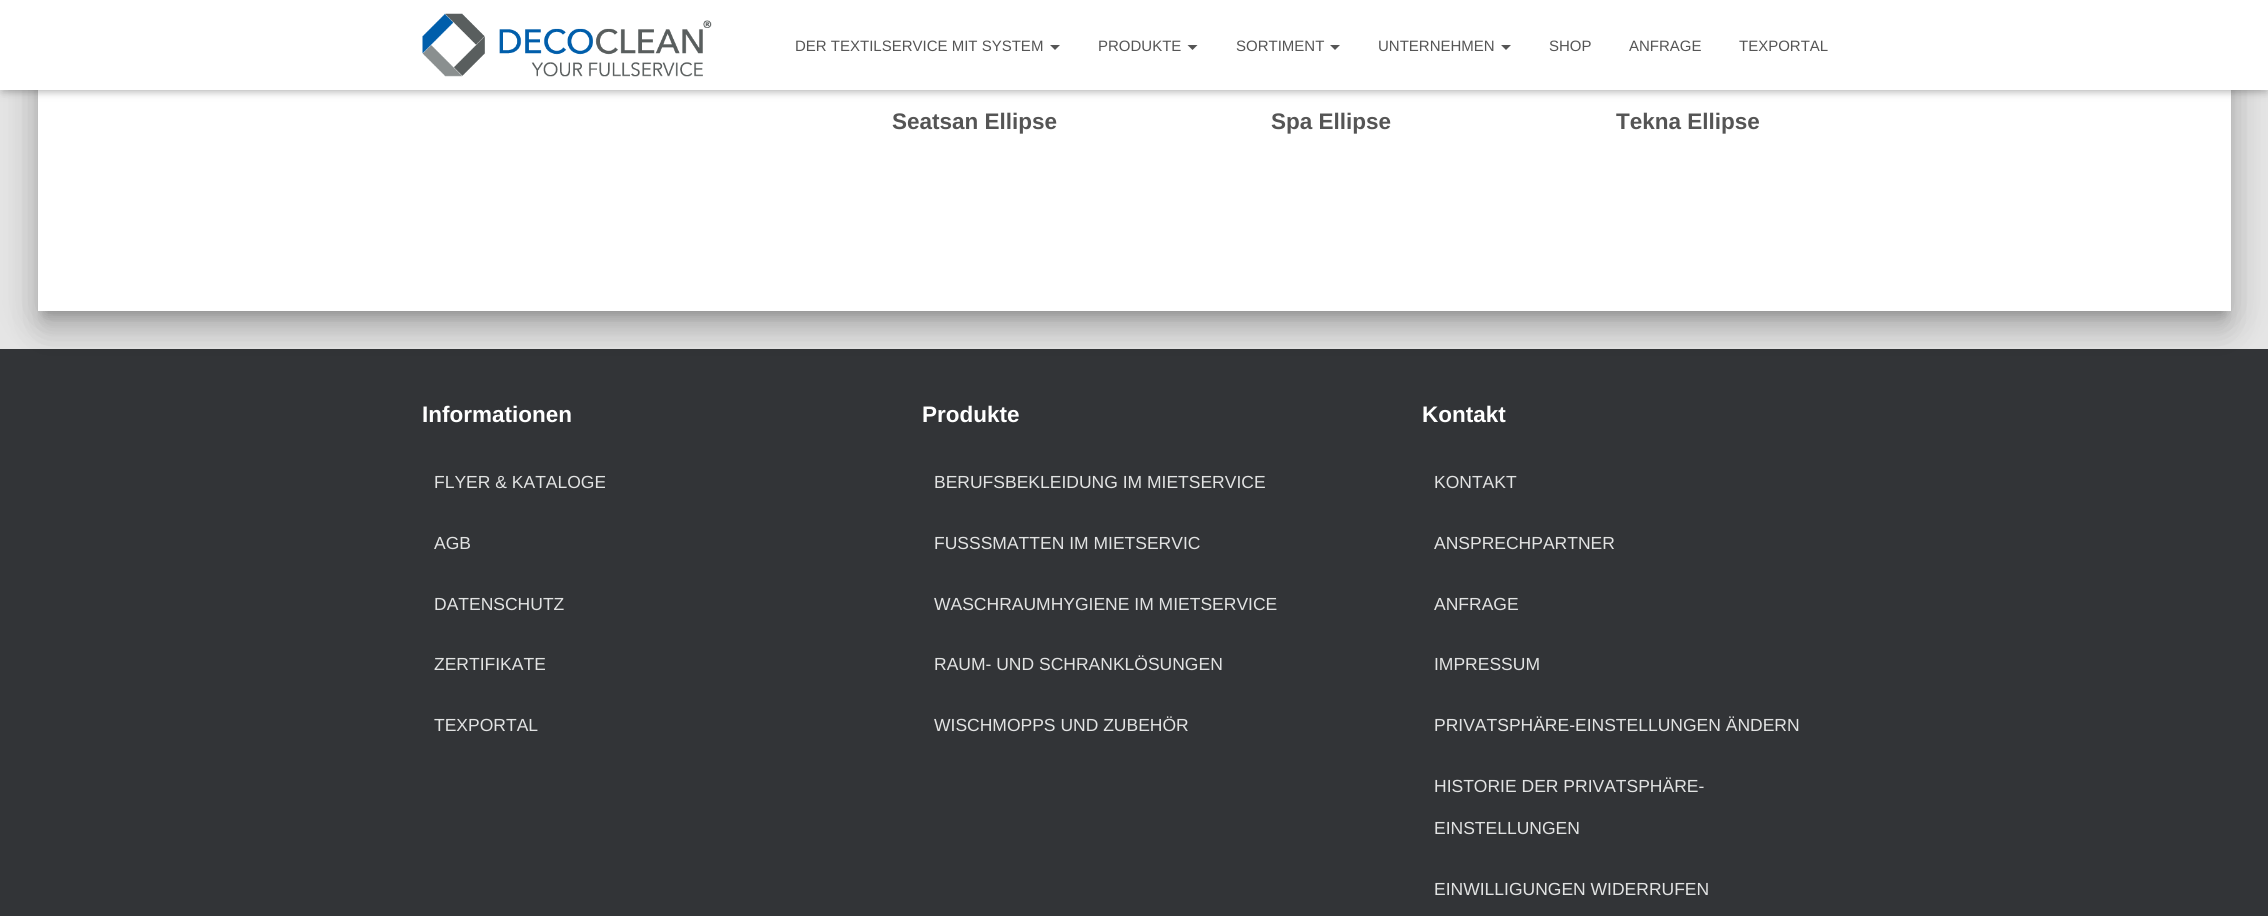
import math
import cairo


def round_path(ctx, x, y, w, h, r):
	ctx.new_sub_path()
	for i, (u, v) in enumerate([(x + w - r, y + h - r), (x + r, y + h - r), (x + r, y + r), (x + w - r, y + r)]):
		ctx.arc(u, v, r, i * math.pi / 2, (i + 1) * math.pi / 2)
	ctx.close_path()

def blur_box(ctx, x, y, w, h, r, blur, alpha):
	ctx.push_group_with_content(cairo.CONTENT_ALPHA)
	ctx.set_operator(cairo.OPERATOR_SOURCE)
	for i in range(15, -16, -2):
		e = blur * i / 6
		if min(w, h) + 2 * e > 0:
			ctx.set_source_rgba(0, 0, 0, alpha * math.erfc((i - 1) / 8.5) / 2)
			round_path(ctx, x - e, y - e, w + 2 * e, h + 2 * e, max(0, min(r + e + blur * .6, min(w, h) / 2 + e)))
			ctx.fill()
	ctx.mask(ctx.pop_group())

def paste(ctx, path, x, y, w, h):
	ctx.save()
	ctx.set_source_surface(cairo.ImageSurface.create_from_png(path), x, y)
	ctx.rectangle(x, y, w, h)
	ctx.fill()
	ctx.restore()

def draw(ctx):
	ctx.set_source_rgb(0.898, 0.898, 0.898)
	ctx.paint()
	ctx.set_source_rgb(0, 0, 0)
	blur_box(ctx, 44, -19, 2181, 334, 1, 6, 0.2)
	ctx.set_source_rgb(0.196, 0.204, 0.216)
	ctx.rectangle(0, 349, 2268, 567)
	ctx.fill()
	ctx.set_source_rgb(0, 0, 0)
	blur_box(ctx, 31, -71, 2207, 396, 14, 19, 0.12)
	blur_box(ctx, 35, -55, 2199, 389, 10, 15, 0.14)
	ctx.set_source_rgb(1, 1, 1)
	ctx.rectangle(38, 90, 2193, 221)
	ctx.fill()
	ctx.set_source_rgb(0, 0, 0)
	blur_box(ctx, 3, 8, 2263, 85, 0, 3, 0.1)
	blur_box(ctx, 0, 1, 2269, 90, 0, 6, 0.12)
	blur_box(ctx, 8, 9, 2253, 75, 0, 6, 0.42)
	ctx.set_source_rgb(1, 1, 1)
	ctx.rectangle(0, 0, 2268, 90)
	ctx.fill()
	paste(ctx, 'media/1.png', 422, 13, 290, 64)
	ctx.select_font_face('Liberation Sans')
	ctx.set_font_size(15)
	ctx.set_source_rgb(0.333, 0.333, 0.333)
	ctx.move_to(795, 51)
	ctx.show_text('DER TEXTILSERVICE MIT SYSTEM')
	ctx.new_path()
	ctx.move_to(1050, 45)
	ctx.line_to(1060, 45)
	ctx.line_to(1055, 50)
	ctx.close_path()
	ctx.fill()
	ctx.move_to(1098, 51)
	ctx.show_text('PRODUKTE')
	ctx.new_path()
	ctx.move_to(1187.5, 45)
	ctx.line_to(1197.5, 45)
	ctx.line_to(1192.5, 50)
	ctx.close_path()
	ctx.fill()
	ctx.move_to(1236, 51)
	ctx.show_text('SORTIMENT')
	ctx.new_path()
	ctx.move_to(1330, 45)
	ctx.line_to(1340, 45)
	ctx.line_to(1335, 50)
	ctx.close_path()
	ctx.fill()
	ctx.move_to(1378, 51)
	ctx.show_text('UNTERNEHMEN')
	ctx.new_path()
	ctx.move_to(1501, 45)
	ctx.line_to(1511, 45)
	ctx.line_to(1506, 50)
	ctx.close_path()
	ctx.fill()
	for x, y, s in [
		(1549, 51, 'SHOP'),
		(1629, 51, 'ANFRAGE'),
		(1739, 51, 'TEXPORTAL'),
	]:
		ctx.move_to(x, y)
		ctx.show_text(s)
	ctx.select_font_face('Liberation Sans', cairo.FONT_SLANT_NORMAL, cairo.FONT_WEIGHT_BOLD)
	ctx.set_font_size(22.5)
	for x, y, s in [
		(892, 129, 'Seatsan Ellipse'),
		(1271, 129, 'Spa Ellipse'),
		(1616, 129, 'Tekna Ellipse'),
	]:
		ctx.move_to(x, y)
		ctx.show_text(s)
	ctx.set_source_rgb(1, 1, 1)
	ctx.move_to(422, 422)
	ctx.show_text('Informationen')
	ctx.select_font_face('Liberation Sans')
	ctx.set_font_size(17.5)
	ctx.set_source_rgb(0.886, 0.89, 0.89)
	for x, y, s in [
		(434, 488, 'FLYER & KATALOGE'),
		(434, 549, 'AGB'),
		(434, 610, 'DATENSCHUTZ'),
		(434, 670, 'ZERTIFIKATE'),
		(434, 731, 'TEXPORTAL'),
	]:
		ctx.move_to(x, y)
		ctx.show_text(s)
	ctx.select_font_face('Liberation Sans', cairo.FONT_SLANT_NORMAL, cairo.FONT_WEIGHT_BOLD)
	ctx.set_font_size(22.5)
	ctx.set_source_rgb(1, 1, 1)
	ctx.move_to(922, 422)
	ctx.show_text('Produkte')
	ctx.select_font_face('Liberation Sans')
	ctx.set_font_size(17.5)
	ctx.set_source_rgb(0.886, 0.89, 0.89)
	for x, y, s in [
		(934, 488, 'BERUFSBEKLEIDUNG IM MIETSERVICE'),
		(934, 549, 'FUSSSMATTEN IM MIETSERVIC'),
		(934, 610, 'WASCHRAUMHYGIENE IM MIETSERVICE'),
		(934, 670, 'RAUM- UND SCHRANKLÖSUNGEN'),
		(934, 731, 'WISCHMOPPS UND ZUBEHÖR'),
	]:
		ctx.move_to(x, y)
		ctx.show_text(s)
	ctx.select_font_face('Liberation Sans', cairo.FONT_SLANT_NORMAL, cairo.FONT_WEIGHT_BOLD)
	ctx.set_font_size(22.5)
	ctx.set_source_rgb(1, 1, 1)
	ctx.move_to(1422, 422)
	ctx.show_text('Kontakt')
	ctx.select_font_face('Liberation Sans')
	ctx.set_font_size(17.5)
	ctx.set_source_rgb(0.886, 0.89, 0.89)
	for x, y, s in [
		(1434, 488, 'KONTAKT'),
		(1434, 549, 'ANSPRECHPARTNER'),
		(1434, 610, 'ANFRAGE'),
		(1434, 670, 'IMPRESSUM'),
		(1434, 731, 'PRIVATSPHÄRE-EINSTELLUNGEN ÄNDERN'),
		(1434, 792, 'HISTORIE DER PRIVATSPHÄRE-'),
		(1434, 834, 'EINSTELLUNGEN'),
		(1434, 895, 'EINWILLIGUNGEN WIDERRUFEN'),
	]:
		ctx.move_to(x, y)
		ctx.show_text(s)


surface = cairo.ImageSurface(cairo.FORMAT_RGB24, 2268, 916)
ctx = cairo.Context(surface)
options = cairo.FontOptions()
options.set_hint_metrics(cairo.HINT_METRICS_OFF)
options.set_hint_style(cairo.HINT_STYLE_NONE)
ctx.set_font_options(options)
ctx.set_miter_limit(4)
draw(ctx)
surface.write_to_png('image.png')
